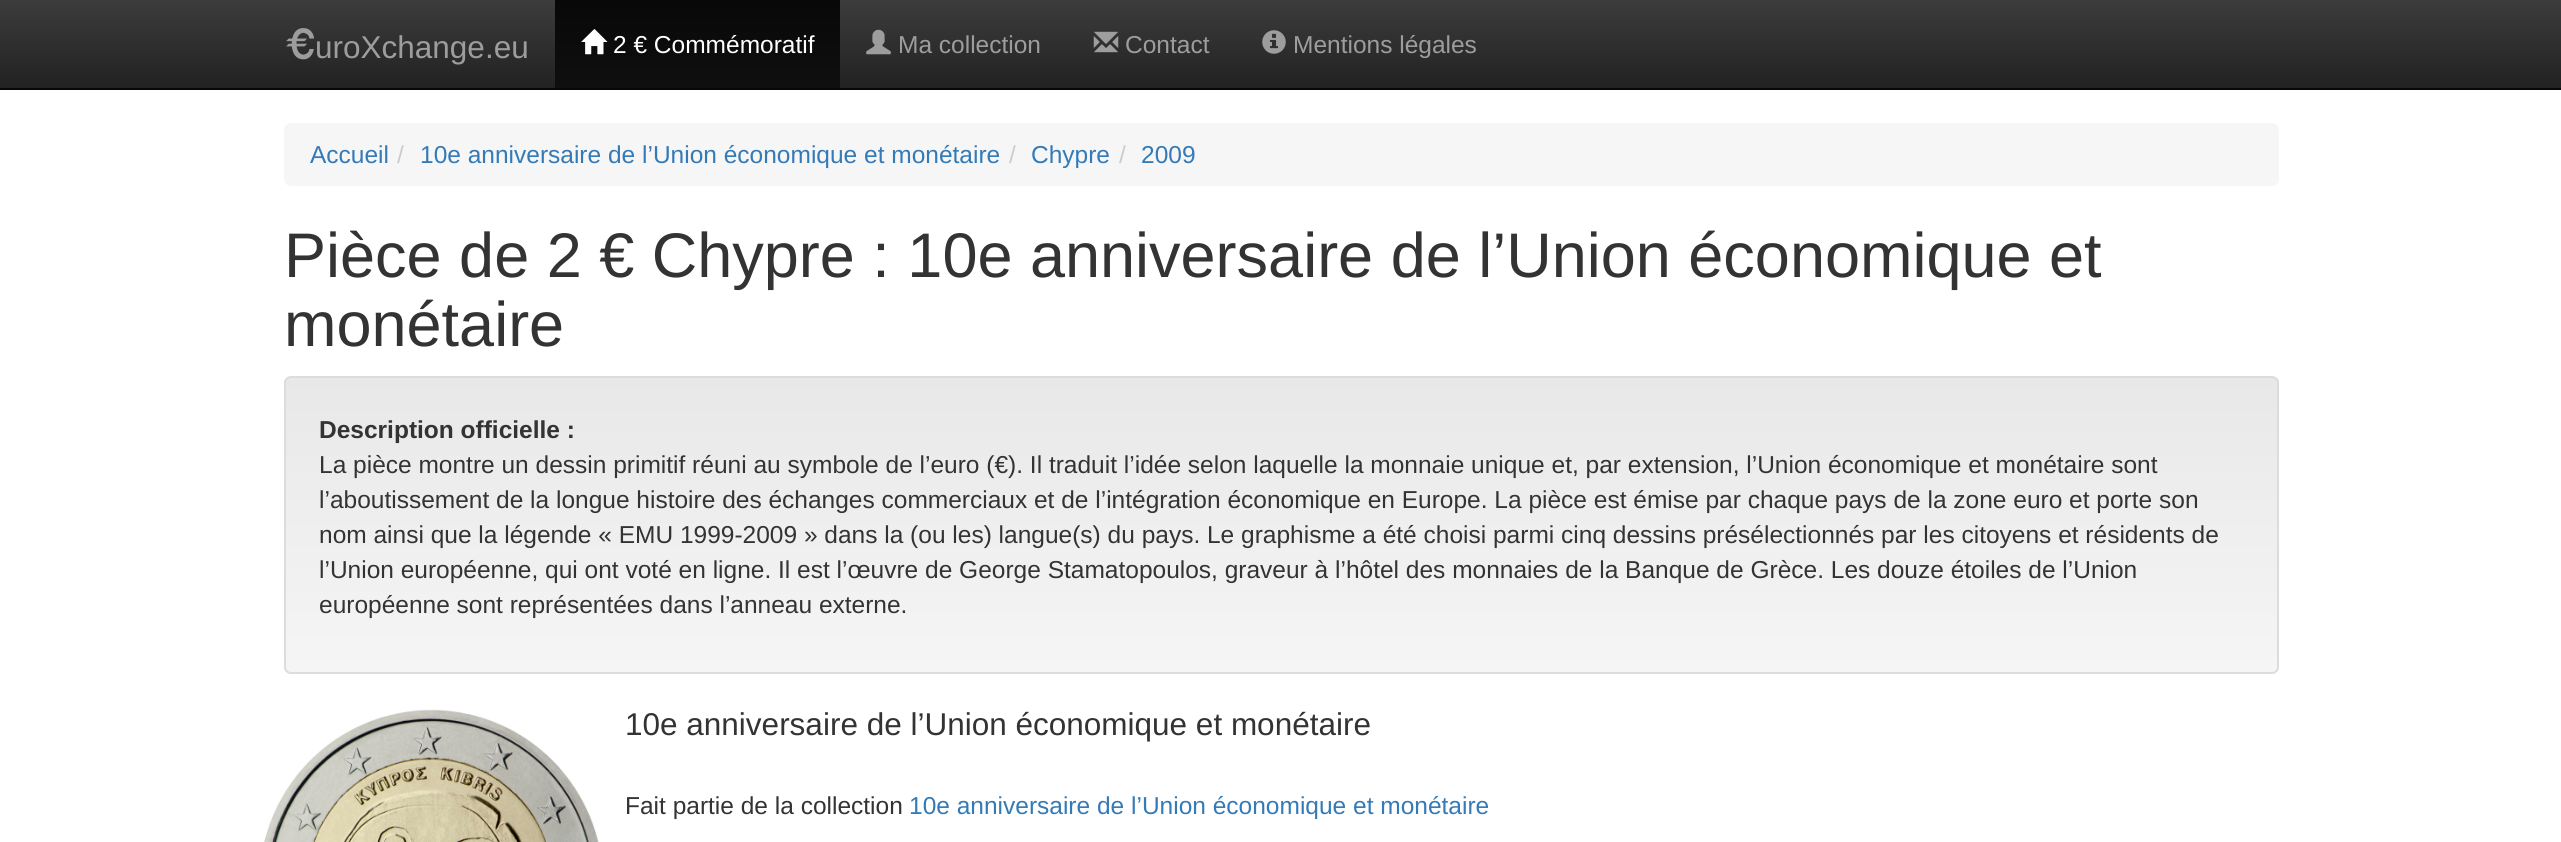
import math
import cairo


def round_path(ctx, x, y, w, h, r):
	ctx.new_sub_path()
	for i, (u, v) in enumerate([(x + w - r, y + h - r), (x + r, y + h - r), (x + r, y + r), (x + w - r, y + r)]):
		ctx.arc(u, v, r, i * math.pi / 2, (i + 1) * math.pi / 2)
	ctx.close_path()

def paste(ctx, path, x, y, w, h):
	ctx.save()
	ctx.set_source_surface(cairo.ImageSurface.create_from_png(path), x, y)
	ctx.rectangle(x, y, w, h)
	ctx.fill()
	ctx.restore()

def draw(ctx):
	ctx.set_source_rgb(1, 1, 1)
	ctx.paint()
	gradient = cairo.LinearGradient(1281, 0, 1281, 88)
	gradient.add_color_stop_rgba(0, 0.235, 0.235, 0.235, 1)
	gradient.add_color_stop_rgba(1, 0.133, 0.133, 0.133, 1)
	ctx.set_source(gradient)
	ctx.rectangle(0, 0, 2561, 88)
	ctx.fill()
	ctx.set_source_rgb(0.031, 0.031, 0.031)
	ctx.rectangle(0, 88, 2561, 2)
	ctx.fill()
	paste(ctx, 'media/1.png', 286, 28, 28, 32)
	ctx.select_font_face('Liberation Sans')
	ctx.set_font_size(31.5)
	ctx.set_source_rgb(0.616, 0.616, 0.616)
	ctx.move_to(315, 58)
	ctx.show_text('uroXchange.eu')
	gradient = cairo.LinearGradient(697, 0, 697, 88)
	gradient.add_color_stop_rgba(0, 0.031, 0.031, 0.031, 1)
	gradient.add_color_stop_rgba(1, 0.059, 0.059, 0.059, 1)
	ctx.set_source(gradient)
	ctx.rectangle(555, 0, 285, 88)
	ctx.fill()
	paste(ctx, 'media/2.png', 581, 29, 27, 26)
	ctx.set_font_size(24.5)
	ctx.set_source_rgb(1, 1, 1)
	ctx.move_to(613, 53)
	ctx.show_text('2 € Commémoratif')
	paste(ctx, 'media/3.png', 866, 29, 25, 26)
	ctx.set_source_rgb(0.616, 0.616, 0.616)
	ctx.move_to(898, 53)
	ctx.show_text('Ma collection')
	paste(ctx, 'media/4.png', 1093, 31, 26, 22)
	ctx.move_to(1125, 53)
	ctx.show_text('Contact')
	paste(ctx, 'media/5.png', 1262, 30, 24, 24)
	ctx.move_to(1293, 53)
	ctx.show_text('Mentions légales')
	ctx.set_source_rgb(0.961, 0.961, 0.961)
	round_path(ctx, 284, 123, 1995, 63, 7)
	ctx.fill()
	ctx.set_source_rgb(0.2, 0.478, 0.718)
	ctx.move_to(310, 163)
	ctx.show_text('Accueil')
	ctx.set_source_rgb(0.8, 0.8, 0.8)
	ctx.move_to(397, 163)
	ctx.show_text('/')
	ctx.set_source_rgb(0.2, 0.478, 0.718)
	ctx.move_to(420, 163)
	ctx.show_text('10e anniversaire de l’Union économique et monétaire')
	ctx.set_source_rgb(0.8, 0.8, 0.8)
	ctx.move_to(1009, 163)
	ctx.show_text('/')
	ctx.set_source_rgb(0.2, 0.478, 0.718)
	ctx.move_to(1031, 163)
	ctx.show_text('Chypre')
	ctx.set_source_rgb(0.8, 0.8, 0.8)
	ctx.move_to(1119, 163)
	ctx.show_text('/')
	ctx.set_source_rgb(0.2, 0.478, 0.718)
	ctx.move_to(1141, 163)
	ctx.show_text('2009')
	ctx.set_font_size(63)
	ctx.set_source_rgb(0.2, 0.2, 0.2)
	ctx.move_to(284, 277)
	ctx.show_text('Pièce de 2 € Chypre : 10e anniversaire de l’Union économique et')
	ctx.move_to(284, 346)
	ctx.show_text('monétaire')
	ctx.save()
	round_path(ctx, 284, 376, 1995, 298, 7)
	ctx.clip()
	gradient = cairo.LinearGradient(1281, 378, 1281, 672)
	gradient.add_color_stop_rgba(0, 0.91, 0.91, 0.91, 1)
	gradient.add_color_stop_rgba(1, 0.961, 0.961, 0.961, 1)
	ctx.set_source(gradient)
	ctx.rectangle(284, 378, 1995, 294)
	ctx.fill()
	ctx.restore()
	round_path(ctx, 285, 377, 1993, 296, 6)
	ctx.set_source_rgb(0.863, 0.863, 0.863)
	ctx.stroke()
	ctx.select_font_face('Liberation Sans', cairo.FONT_SLANT_NORMAL, cairo.FONT_WEIGHT_BOLD)
	ctx.set_font_size(24.5)
	ctx.set_source_rgb(0.2, 0.2, 0.2)
	ctx.move_to(319, 438)
	ctx.show_text('Description officielle :')
	ctx.select_font_face('Liberation Sans')
	for x, y, s in [
		(319, 473, 'La pièce montre un dessin primitif réuni au symbole de l’euro (€). Il traduit l’idée selon laquelle la monnaie unique et, par extension, l’Union économique et monétaire sont'),
		(319, 508, 'l’aboutissement de la longue histoire des échanges commerciaux et de l’intégration économique en Europe. La pièce est émise par chaque pays de la zone euro et porte son'),
		(319, 543, 'nom ainsi que la légende « EMU 1999-2009 » dans la (ou les) langue(s) du pays. Le graphisme a été choisi parmi cinq dessins présélectionnés par les citoyens et résidents de'),
		(319, 578, 'l’Union européenne, qui ont voté en ligne. Il est l’œuvre de George Stamatopoulos, graveur à l’hôtel des monnaies de la Banque de Grèce. Les douze étoiles de l’Union'),
		(319, 613, 'européenne sont représentées dans l’anneau externe.'),
	]:
		ctx.move_to(x, y)
		ctx.show_text(s)
	paste(ctx, 'media/6.png', 264, 709, 335, 133)
	ctx.set_font_size(31.5)
	ctx.move_to(625, 735)
	ctx.show_text('10e anniversaire de l’Union économique et monétaire')
	ctx.set_font_size(24.5)
	ctx.move_to(625, 814)
	ctx.show_text('Fait partie de la collection')
	ctx.set_source_rgb(0.2, 0.478, 0.718)
	ctx.move_to(909, 814)
	ctx.show_text('10e anniversaire de l’Union économique et monétaire')


surface = cairo.ImageSurface(cairo.FORMAT_RGB24, 2561, 842)
ctx = cairo.Context(surface)
options = cairo.FontOptions()
options.set_hint_metrics(cairo.HINT_METRICS_OFF)
options.set_hint_style(cairo.HINT_STYLE_NONE)
ctx.set_font_options(options)
ctx.set_miter_limit(4)
draw(ctx)
surface.write_to_png('image.png')
